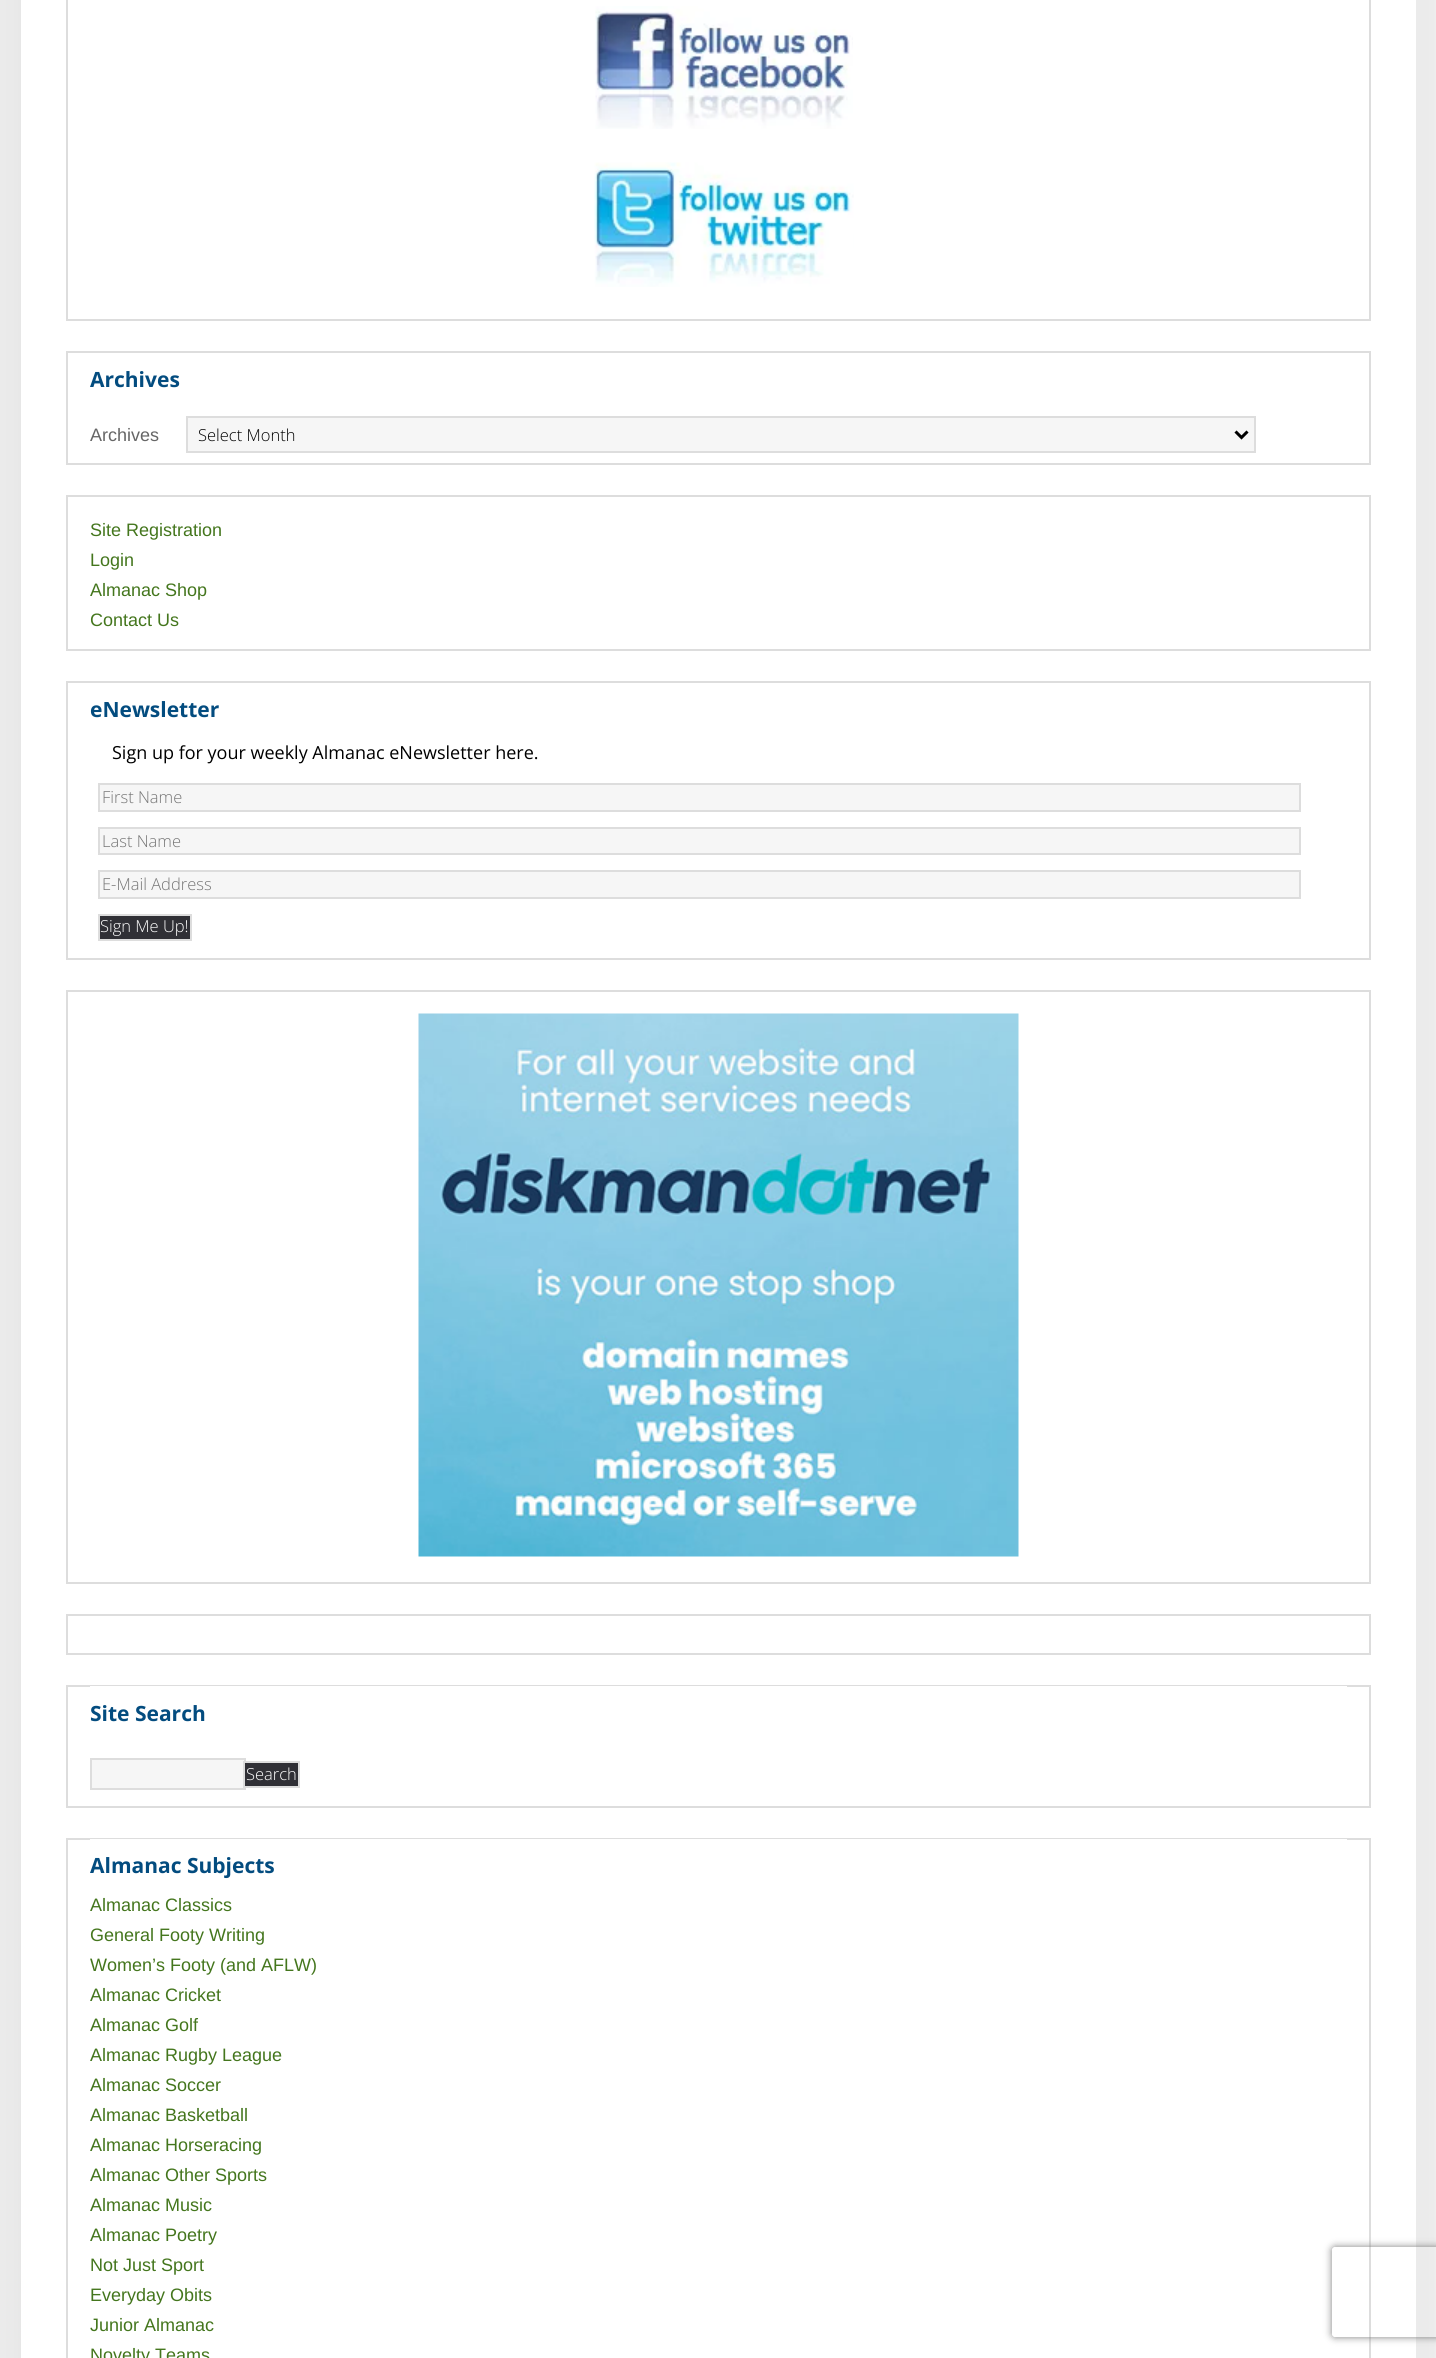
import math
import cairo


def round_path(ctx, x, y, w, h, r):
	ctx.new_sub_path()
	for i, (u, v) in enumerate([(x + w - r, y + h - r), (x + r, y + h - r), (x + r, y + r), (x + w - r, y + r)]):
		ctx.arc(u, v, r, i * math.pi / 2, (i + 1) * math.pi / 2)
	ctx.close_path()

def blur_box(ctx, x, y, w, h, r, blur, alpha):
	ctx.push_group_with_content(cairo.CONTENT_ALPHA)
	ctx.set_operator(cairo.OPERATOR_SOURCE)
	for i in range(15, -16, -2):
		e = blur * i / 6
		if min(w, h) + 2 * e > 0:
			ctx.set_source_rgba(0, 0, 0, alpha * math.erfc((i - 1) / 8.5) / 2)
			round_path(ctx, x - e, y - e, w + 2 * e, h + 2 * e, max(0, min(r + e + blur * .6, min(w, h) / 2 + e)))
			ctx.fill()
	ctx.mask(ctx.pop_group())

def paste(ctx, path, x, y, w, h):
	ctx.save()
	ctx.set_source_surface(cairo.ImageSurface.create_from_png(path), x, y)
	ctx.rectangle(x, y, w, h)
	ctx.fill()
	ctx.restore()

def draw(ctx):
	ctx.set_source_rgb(1, 1, 1)
	ctx.paint()
	paste(ctx, 'media/1.png', 0, 0, 1436, 2358)
	ctx.set_source_rgb(1, 1, 1)
	ctx.rectangle(21, 0, 1395, 2358)
	ctx.fill()
	ctx.rectangle(67, -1, 1303, 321)
	ctx.set_source_rgb(0.867, 0.867, 0.867)
	ctx.stroke()
	paste(ctx, 'media/2.png', 595, 6, 258, 123)
	paste(ctx, 'media/3.png', 594, 162, 260, 125)
	ctx.rectangle(67, 352, 1303, 112)
	ctx.stroke()
	ctx.select_font_face('Open Sans', cairo.FONT_SLANT_NORMAL, cairo.FONT_WEIGHT_BOLD)
	ctx.set_font_size(21)
	ctx.set_source_rgb(0.012, 0.298, 0.498)
	ctx.move_to(90, 387)
	ctx.show_text('Archives')
	ctx.select_font_face('Liberation Sans')
	ctx.set_font_size(18)
	ctx.set_source_rgb(0.4, 0.4, 0.4)
	ctx.move_to(90, 441)
	ctx.show_text('Archives')
	ctx.set_source_rgb(0.961, 0.961, 0.961)
	ctx.rectangle(187, 417, 1068, 35)
	ctx.fill_preserve()
	ctx.set_source_rgb(0.867, 0.867, 0.867)
	ctx.stroke()
	ctx.new_path()
	ctx.move_to(1235.5, 431.5)
	ctx.line_to(1241.5, 437.5)
	ctx.line_to(1247.5, 431.5)
	ctx.set_source_rgb(0, 0, 0)
	ctx.set_line_width(3)
	ctx.stroke()
	ctx.select_font_face('Open Sans Light')
	ctx.set_font_size(16.5)
	ctx.move_to(198, 441)
	ctx.show_text('Select Month')
	ctx.rectangle(67, 496, 1303, 154)
	ctx.set_source_rgb(0.867, 0.867, 0.867)
	ctx.set_line_width(2)
	ctx.stroke()
	ctx.select_font_face('Liberation Sans')
	ctx.set_font_size(18)
	ctx.set_source_rgb(0.267, 0.463, 0.114)
	for x, y, s in [
		(90, 536, 'Site Registration'),
		(90, 566, 'Login'),
		(90, 596, 'Almanac Shop'),
		(90, 626, 'Contact Us'),
	]:
		ctx.move_to(x, y)
		ctx.show_text(s)
	ctx.rectangle(67, 682, 1303, 277)
	ctx.set_source_rgb(0.867, 0.867, 0.867)
	ctx.stroke()
	ctx.select_font_face('Open Sans', cairo.FONT_SLANT_NORMAL, cairo.FONT_WEIGHT_BOLD)
	ctx.set_font_size(21)
	ctx.set_source_rgb(0.012, 0.298, 0.498)
	ctx.move_to(90, 717)
	ctx.show_text('eNewsletter')
	ctx.select_font_face('Open Sans')
	ctx.set_font_size(18)
	ctx.set_source_rgb(0, 0, 0)
	ctx.move_to(112, 759)
	ctx.show_text('Sign up for your weekly Almanac eNewsletter here.')
	ctx.set_source_rgb(0.961, 0.961, 0.961)
	ctx.rectangle(99, 784, 1201, 27)
	ctx.fill_preserve()
	ctx.set_source_rgb(0.867, 0.867, 0.867)
	ctx.stroke()
	ctx.select_font_face('Open Sans Light')
	ctx.set_font_size(16.5)
	ctx.set_source_rgb(0.459, 0.459, 0.459)
	ctx.move_to(102, 803)
	ctx.show_text('First Name')
	ctx.set_source_rgb(0.961, 0.961, 0.961)
	ctx.rectangle(99, 828, 1201, 26)
	ctx.fill_preserve()
	ctx.set_source_rgb(0.867, 0.867, 0.867)
	ctx.stroke()
	ctx.set_source_rgb(0.459, 0.459, 0.459)
	ctx.move_to(102, 847)
	ctx.show_text('Last Name')
	ctx.set_source_rgb(0.961, 0.961, 0.961)
	ctx.rectangle(99, 871, 1201, 27)
	ctx.fill_preserve()
	ctx.set_source_rgb(0.867, 0.867, 0.867)
	ctx.stroke()
	ctx.set_source_rgb(0.459, 0.459, 0.459)
	ctx.move_to(102, 890)
	ctx.show_text('E-Mail Address')
	ctx.set_source_rgb(0.188, 0.188, 0.212)
	ctx.rectangle(99, 915, 92, 25)
	ctx.fill_preserve()
	ctx.set_source_rgb(0.867, 0.867, 0.867)
	ctx.stroke()
	ctx.set_source_rgb(1, 1, 1)
	ctx.move_to(100, 932)
	ctx.show_text('Sign Me Up!')
	ctx.rectangle(67, 991, 1303, 592)
	ctx.set_source_rgb(0.867, 0.867, 0.867)
	ctx.stroke()
	paste(ctx, 'media/4.png', 418, 1013, 601, 544)
	ctx.rectangle(67, 1615, 1303, 39)
	ctx.stroke()
	ctx.rectangle(67, 1686, 1303, 121)
	ctx.stroke()
	ctx.set_source_rgb(1, 1, 1)
	ctx.rectangle(90, 1686, 1257, 1)
	ctx.fill()
	ctx.select_font_face('Open Sans', cairo.FONT_SLANT_NORMAL, cairo.FONT_WEIGHT_BOLD)
	ctx.set_font_size(21)
	ctx.set_source_rgb(0.012, 0.298, 0.498)
	ctx.move_to(90, 1721)
	ctx.show_text('Site Search')
	ctx.set_source_rgb(0.961, 0.961, 0.961)
	ctx.rectangle(91, 1759, 154, 30)
	ctx.fill_preserve()
	ctx.set_source_rgb(0.867, 0.867, 0.867)
	ctx.stroke()
	ctx.set_source_rgb(0.188, 0.188, 0.212)
	ctx.rectangle(244, 1762, 55, 25)
	ctx.fill_preserve()
	ctx.set_source_rgb(0.867, 0.867, 0.867)
	ctx.stroke()
	ctx.select_font_face('Open Sans Light')
	ctx.set_font_size(16.5)
	ctx.set_source_rgb(1, 1, 1)
	ctx.move_to(246, 1780)
	ctx.show_text('Search')
	ctx.rectangle(67, 1839, 1303, 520)
	ctx.set_source_rgb(0.867, 0.867, 0.867)
	ctx.stroke()
	ctx.set_source_rgb(1, 1, 1)
	ctx.rectangle(90, 1839, 1257, 1)
	ctx.fill()
	ctx.select_font_face('Open Sans', cairo.FONT_SLANT_NORMAL, cairo.FONT_WEIGHT_BOLD)
	ctx.set_font_size(21)
	ctx.set_source_rgb(0.012, 0.298, 0.498)
	ctx.move_to(90, 1873)
	ctx.show_text('Almanac Subjects')
	ctx.select_font_face('Liberation Sans')
	ctx.set_font_size(18)
	ctx.set_source_rgb(0.267, 0.463, 0.114)
	for x, y, s in [
		(90, 1911, 'Almanac Classics'),
		(90, 1941, 'General Footy Writing'),
		(90, 1971, 'Women’s Footy (and AFLW)'),
		(90, 2001, 'Almanac Cricket'),
		(90, 2031, 'Almanac Golf'),
		(90, 2061, 'Almanac Rugby League'),
		(90, 2091, 'Almanac Soccer'),
		(90, 2121, 'Almanac Basketball'),
		(90, 2151, 'Almanac Horseracing'),
		(90, 2181, 'Almanac Other Sports'),
		(90, 2211, 'Almanac Music'),
		(90, 2241, 'Almanac Poetry'),
		(90, 2271, 'Not Just Sport'),
		(90, 2301, 'Everyday Obits'),
		(90, 2331, 'Junior Almanac'),
		(90, 2361, 'Novelty Teams'),
	]:
		ctx.move_to(x, y)
		ctx.show_text(s)
	ctx.save()
	ctx.set_fill_rule(cairo.FILL_RULE_EVEN_ODD)
	ctx.new_path()
	ctx.move_to(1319, 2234)
	ctx.line_to(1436, 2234)
	ctx.line_to(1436, 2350)
	ctx.line_to(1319, 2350)
	ctx.close_path()
	ctx.move_to(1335, 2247)
	ctx.line_to(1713, 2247)
	ctx.curve_to(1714.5, 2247, 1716, 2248.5, 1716, 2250)
	ctx.line_to(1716, 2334)
	ctx.curve_to(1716, 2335.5, 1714.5, 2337, 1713, 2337)
	ctx.line_to(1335, 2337)
	ctx.curve_to(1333.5, 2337, 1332, 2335.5, 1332, 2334)
	ctx.line_to(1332, 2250)
	ctx.curve_to(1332, 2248.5, 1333.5, 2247, 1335, 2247)
	ctx.close_path()
	ctx.clip()
	ctx.set_source_rgb(0.502, 0.502, 0.502)
	blur_box(ctx, 1332, 2247, 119, 90, 3, 4, 1)
	ctx.restore()


surface = cairo.ImageSurface(cairo.FORMAT_RGB24, 1436, 2358)
ctx = cairo.Context(surface)
options = cairo.FontOptions()
options.set_hint_metrics(cairo.HINT_METRICS_OFF)
options.set_hint_style(cairo.HINT_STYLE_NONE)
ctx.set_font_options(options)
ctx.set_miter_limit(4)
draw(ctx)
surface.write_to_png('image.png')
